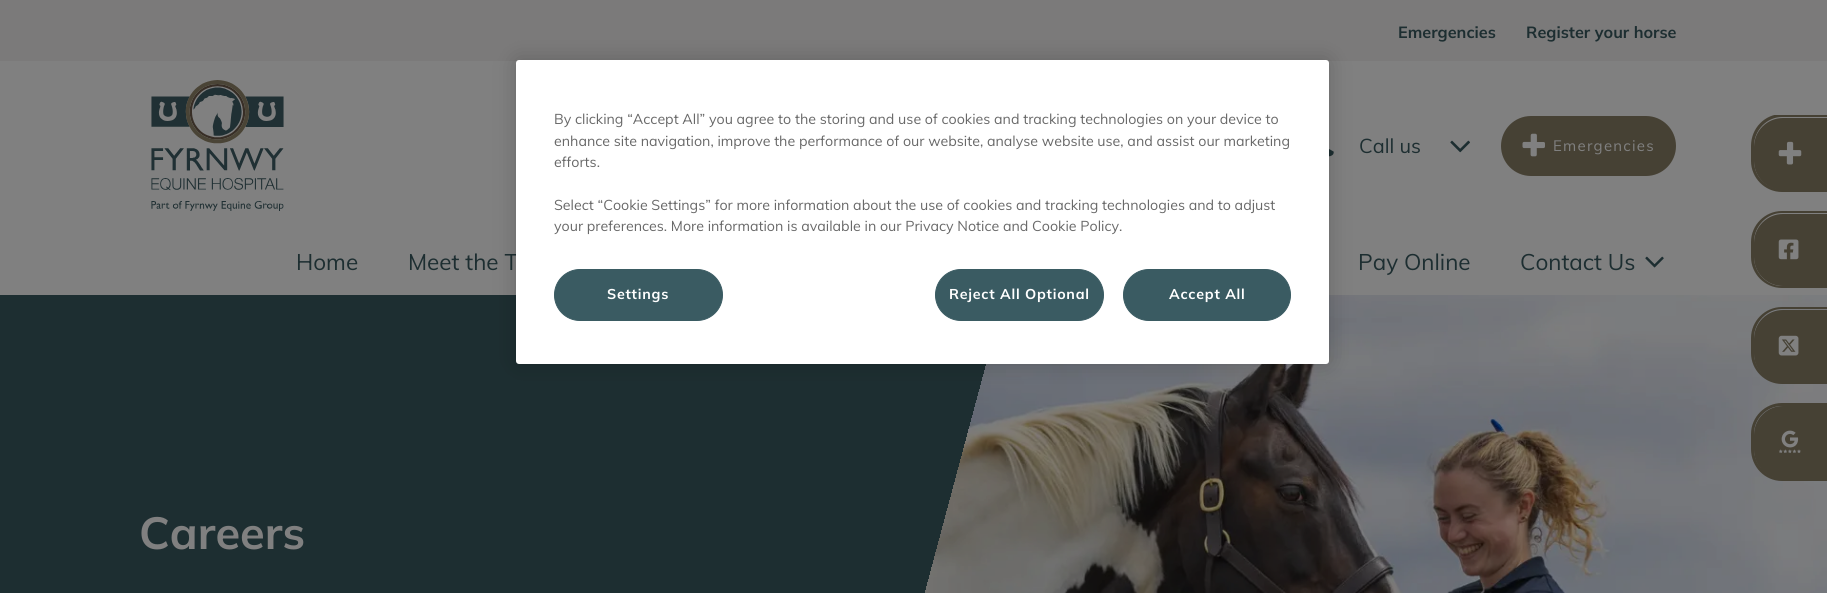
import math
import cairo


def write_spaced(ctx, x, y, s, letter, word):
	ctx.move_to(x, y)
	for ch in s:
		ctx.show_text(ch)
		ctx.rel_move_to(letter + word * (ch == ' '), 0)

def round_path(ctx, x, y, w, h, r):
	ctx.new_sub_path()
	for i, (u, v) in enumerate([(x + w - r, y + h - r), (x + r, y + h - r), (x + r, y + r), (x + w - r, y + r)]):
		ctx.arc(u, v, r, i * math.pi / 2, (i + 1) * math.pi / 2)
	ctx.close_path()

def blur_box(ctx, x, y, w, h, r, blur, alpha):
	ctx.push_group_with_content(cairo.CONTENT_ALPHA)
	ctx.set_operator(cairo.OPERATOR_SOURCE)
	for i in range(15, -16, -2):
		e = blur * i / 6
		if min(w, h) + 2 * e > 0:
			ctx.set_source_rgba(0, 0, 0, alpha * math.erfc((i - 1) / 8.5) / 2)
			round_path(ctx, x - e, y - e, w + 2 * e, h + 2 * e, max(0, min(r + e + blur * .6, min(w, h) / 2 + e)))
			ctx.fill()
	ctx.mask(ctx.pop_group())

def paste(ctx, path, x, y, w, h):
	ctx.save()
	ctx.set_source_surface(cairo.ImageSurface.create_from_png(path), x, y)
	ctx.rectangle(x, y, w, h)
	ctx.fill()
	ctx.restore()

def draw(ctx):
	ctx.set_source_rgb(0.502, 0.502, 0.502)
	ctx.paint()
	ctx.set_source_rgb(0.482, 0.478, 0.478)
	ctx.rectangle(0, 0, 1827, 61)
	ctx.fill()
	ctx.select_font_face('Mulish', cairo.FONT_SLANT_NORMAL, cairo.FONT_WEIGHT_BOLD)
	ctx.set_font_size(16.25)
	ctx.set_source_rgb(0.114, 0.18, 0.192)
	ctx.move_to(1398, 38)
	ctx.show_text('Emergencies')
	ctx.move_to(1526, 38)
	ctx.show_text('Register your horse')
	paste(ctx, 'media/1.png', 151, 80, 133, 131)
	paste(ctx, 'media/2.png', 1329, 149, 5, 8)
	ctx.select_font_face('Muli')
	ctx.set_font_size(20)
	ctx.move_to(1359, 153)
	ctx.show_text('Call us')
	paste(ctx, 'media/3.png', 1450, 140, 20, 13)
	ctx.set_source_rgb(0.275, 0.255, 0.204)
	round_path(ctx, 1502.5, 117.5, 172, 57, 28.5)
	ctx.fill_preserve()
	ctx.set_line_width(3)
	ctx.stroke()
	paste(ctx, 'media/4.png', 1522, 133, 23, 24)
	ctx.set_font_size(15)
	ctx.set_source_rgb(0.502, 0.502, 0.502)
	write_spaced(ctx, 1553, 151, 'Emergencies', 1.25, 0)
	ctx.set_font_size(22.5)
	ctx.set_source_rgb(0.114, 0.18, 0.192)
	for x, y, s in [
		(296, 270, 'Home'),
		(408, 270, 'Meet the T'),
		(1358, 270, 'Pay Online'),
		(1520, 270, 'Contact Us'),
	]:
		ctx.move_to(x, y)
		ctx.show_text(s)
	paste(ctx, 'media/5.png', 1645, 256, 19, 12)
	ctx.set_source_rgb(0.275, 0.255, 0.204)
	ctx.new_path()
	ctx.move_to(1783, 118)
	ctx.line_to(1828, 118)
	ctx.line_to(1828, 190)
	ctx.line_to(1783, 190)
	ctx.curve_to(1767, 190, 1754, 177, 1754, 161)
	ctx.line_to(1754, 147)
	ctx.curve_to(1754, 131, 1767, 118, 1783, 118)
	ctx.close_path()
	ctx.fill()
	ctx.save()
	ctx.rectangle(1751, 115, 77, 366)
	ctx.clip()
	ctx.set_fill_rule(cairo.FILL_RULE_EVEN_ODD)
	ctx.new_path()
	ctx.move_to(1782, 114)
	ctx.line_to(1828, 114)
	ctx.line_to(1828, 192)
	ctx.line_to(1782, 192)
	ctx.curve_to(1765, 192, 1751, 178, 1751, 161)
	ctx.line_to(1751, 146)
	ctx.curve_to(1751, 128, 1765, 114, 1782, 114)
	ctx.close_path()
	ctx.move_to(1782, 117)
	ctx.line_to(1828, 117)
	ctx.line_to(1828, 189)
	ctx.line_to(1782, 189)
	ctx.curve_to(1767, 189, 1754, 177, 1754, 161)
	ctx.line_to(1754, 146)
	ctx.curve_to(1754, 130, 1767, 117, 1782, 117)
	ctx.close_path()
	ctx.fill()
	ctx.restore()
	paste(ctx, 'media/6.png', 1778, 141, 24, 24)
	ctx.new_path()
	ctx.move_to(1783, 214)
	ctx.line_to(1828, 214)
	ctx.line_to(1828, 286)
	ctx.line_to(1783, 286)
	ctx.curve_to(1767, 286, 1754, 273, 1754, 257)
	ctx.line_to(1754, 243)
	ctx.curve_to(1754, 227, 1767, 214, 1783, 214)
	ctx.close_path()
	ctx.fill()
	ctx.set_fill_rule(cairo.FILL_RULE_EVEN_ODD)
	ctx.new_path()
	ctx.move_to(1782, 211)
	ctx.line_to(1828, 211)
	ctx.line_to(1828, 288)
	ctx.line_to(1782, 288)
	ctx.curve_to(1765, 288, 1751, 274, 1751, 257)
	ctx.line_to(1751, 242)
	ctx.curve_to(1751, 225, 1765, 211, 1782, 211)
	ctx.close_path()
	ctx.move_to(1782, 213)
	ctx.line_to(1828, 213)
	ctx.line_to(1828, 286)
	ctx.line_to(1782, 286)
	ctx.curve_to(1767, 286, 1754, 273, 1754, 257)
	ctx.line_to(1754, 242)
	ctx.curve_to(1754, 226, 1767, 213, 1782, 213)
	ctx.close_path()
	ctx.fill()
	paste(ctx, 'media/7.png', 1778, 239, 21, 21)
	paste(ctx, 'media/10.png', 925, 295, 902, 298)
	ctx.new_path()
	ctx.move_to(1783, 310)
	ctx.line_to(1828, 310)
	ctx.line_to(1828, 383)
	ctx.line_to(1783, 383)
	ctx.curve_to(1767, 383, 1754, 370, 1754, 354)
	ctx.line_to(1754, 339)
	ctx.curve_to(1754, 323, 1767, 310, 1783, 310)
	ctx.close_path()
	ctx.fill()
	ctx.new_path()
	ctx.move_to(1782, 307)
	ctx.line_to(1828, 307)
	ctx.line_to(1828, 384)
	ctx.line_to(1782, 384)
	ctx.curve_to(1765, 384, 1751, 370, 1751, 353)
	ctx.line_to(1751, 338)
	ctx.curve_to(1751, 321, 1765, 307, 1782, 307)
	ctx.close_path()
	ctx.move_to(1782, 309)
	ctx.line_to(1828, 309)
	ctx.line_to(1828, 382)
	ctx.line_to(1782, 382)
	ctx.curve_to(1767, 382, 1754, 369, 1754, 353)
	ctx.line_to(1754, 338)
	ctx.curve_to(1754, 322, 1767, 309, 1782, 309)
	ctx.close_path()
	ctx.fill()
	paste(ctx, 'media/8.png', 1778, 335, 21, 21)
	ctx.new_path()
	ctx.move_to(1783, 406)
	ctx.line_to(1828, 406)
	ctx.line_to(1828, 479)
	ctx.line_to(1783, 479)
	ctx.curve_to(1767, 479, 1754, 466, 1754, 450)
	ctx.line_to(1754, 435)
	ctx.curve_to(1754, 419, 1767, 406, 1783, 406)
	ctx.close_path()
	ctx.fill()
	ctx.new_path()
	ctx.move_to(1782, 403)
	ctx.line_to(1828, 403)
	ctx.line_to(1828, 481)
	ctx.line_to(1782, 481)
	ctx.curve_to(1765, 481, 1751, 467, 1751, 449)
	ctx.line_to(1751, 434)
	ctx.curve_to(1751, 417, 1765, 403, 1782, 403)
	ctx.close_path()
	ctx.move_to(1782, 406)
	ctx.line_to(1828, 406)
	ctx.line_to(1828, 478)
	ctx.line_to(1782, 478)
	ctx.curve_to(1767, 478, 1754, 465, 1754, 449)
	ctx.line_to(1754, 434)
	ctx.curve_to(1754, 418, 1767, 406, 1782, 406)
	ctx.close_path()
	ctx.fill()
	paste(ctx, 'media/9.png', 1778, 430, 23, 23)
	gradient = cairo.LinearGradient(-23, 381, 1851, 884)
	gradient.add_color_stop_rgba(0.5, 0.114, 0.18, 0.192, 1)
	gradient.add_color_stop_rgba(0.5, 0.114, 0.18, 0.192, 0)
	ctx.set_source(gradient)
	ctx.rectangle(0, 295, 986, 298)
	ctx.fill()
	ctx.select_font_face('Mulish', cairo.FONT_SLANT_NORMAL, cairo.FONT_WEIGHT_BOLD)
	ctx.set_font_size(45)
	ctx.set_source_rgb(0.502, 0.502, 0.502)
	ctx.move_to(139, 549)
	ctx.show_text('Careers')
	ctx.set_source_rgb(0, 0, 0)
	blur_box(ctx, 516, 60, 813, 304, 3, 11, 0.2)
	ctx.set_source_rgb(1, 1, 1)
	round_path(ctx, 516, 60, 813, 304, 3)
	ctx.fill()
	ctx.select_font_face('Muli')
	ctx.set_font_size(14.23)
	ctx.set_source_rgb(0.412, 0.412, 0.412)
	for x, y, s in [
		(554, 124, 'By clicking “Accept All” you agree to the storing and use of cookies and tracking technologies on your device to'),
		(554, 146, 'enhance site navigation, improve the performance of our website, analyse website use, and assist our marketing'),
		(554, 167, 'efforts.'),
		(554, 210, 'Select “Cookie Settings” for more information about the use of cookies and tracking technologies and to adjust'),
		(554, 231, 'your preferences. More information is available in our Privacy Notice and Cookie Policy.'),
	]:
		ctx.move_to(x, y)
		ctx.show_text(s)
	ctx.set_source_rgb(0.227, 0.357, 0.384)
	round_path(ctx, 554.5, 269.5, 168, 51, 25.5)
	ctx.fill_preserve()
	ctx.set_line_width(1)
	ctx.stroke()
	ctx.select_font_face('Mulish', cairo.FONT_SLANT_NORMAL, cairo.FONT_WEIGHT_BOLD)
	ctx.set_source_rgb(1, 1, 1)
	write_spaced(ctx, 607, 299, 'Settings', 0.75, 0)
	ctx.set_source_rgb(0.227, 0.357, 0.384)
	round_path(ctx, 935.5, 269.5, 168, 51, 25.5)
	ctx.fill_preserve()
	ctx.stroke()
	ctx.set_source_rgb(1, 1, 1)
	write_spaced(ctx, 949, 299, 'Reject All Optional', 0.75, 0)
	ctx.set_source_rgb(0.227, 0.357, 0.384)
	round_path(ctx, 1123.5, 269.5, 167, 51, 25.5)
	ctx.fill_preserve()
	ctx.stroke()
	ctx.set_source_rgb(1, 1, 1)
	write_spaced(ctx, 1169, 299, 'Accept All', 0.75, 0)


surface = cairo.ImageSurface(cairo.FORMAT_RGB24, 1827, 593)
ctx = cairo.Context(surface)
options = cairo.FontOptions()
options.set_hint_metrics(cairo.HINT_METRICS_OFF)
options.set_hint_style(cairo.HINT_STYLE_NONE)
ctx.set_font_options(options)
ctx.set_miter_limit(4)
draw(ctx)
surface.write_to_png('image.png')
